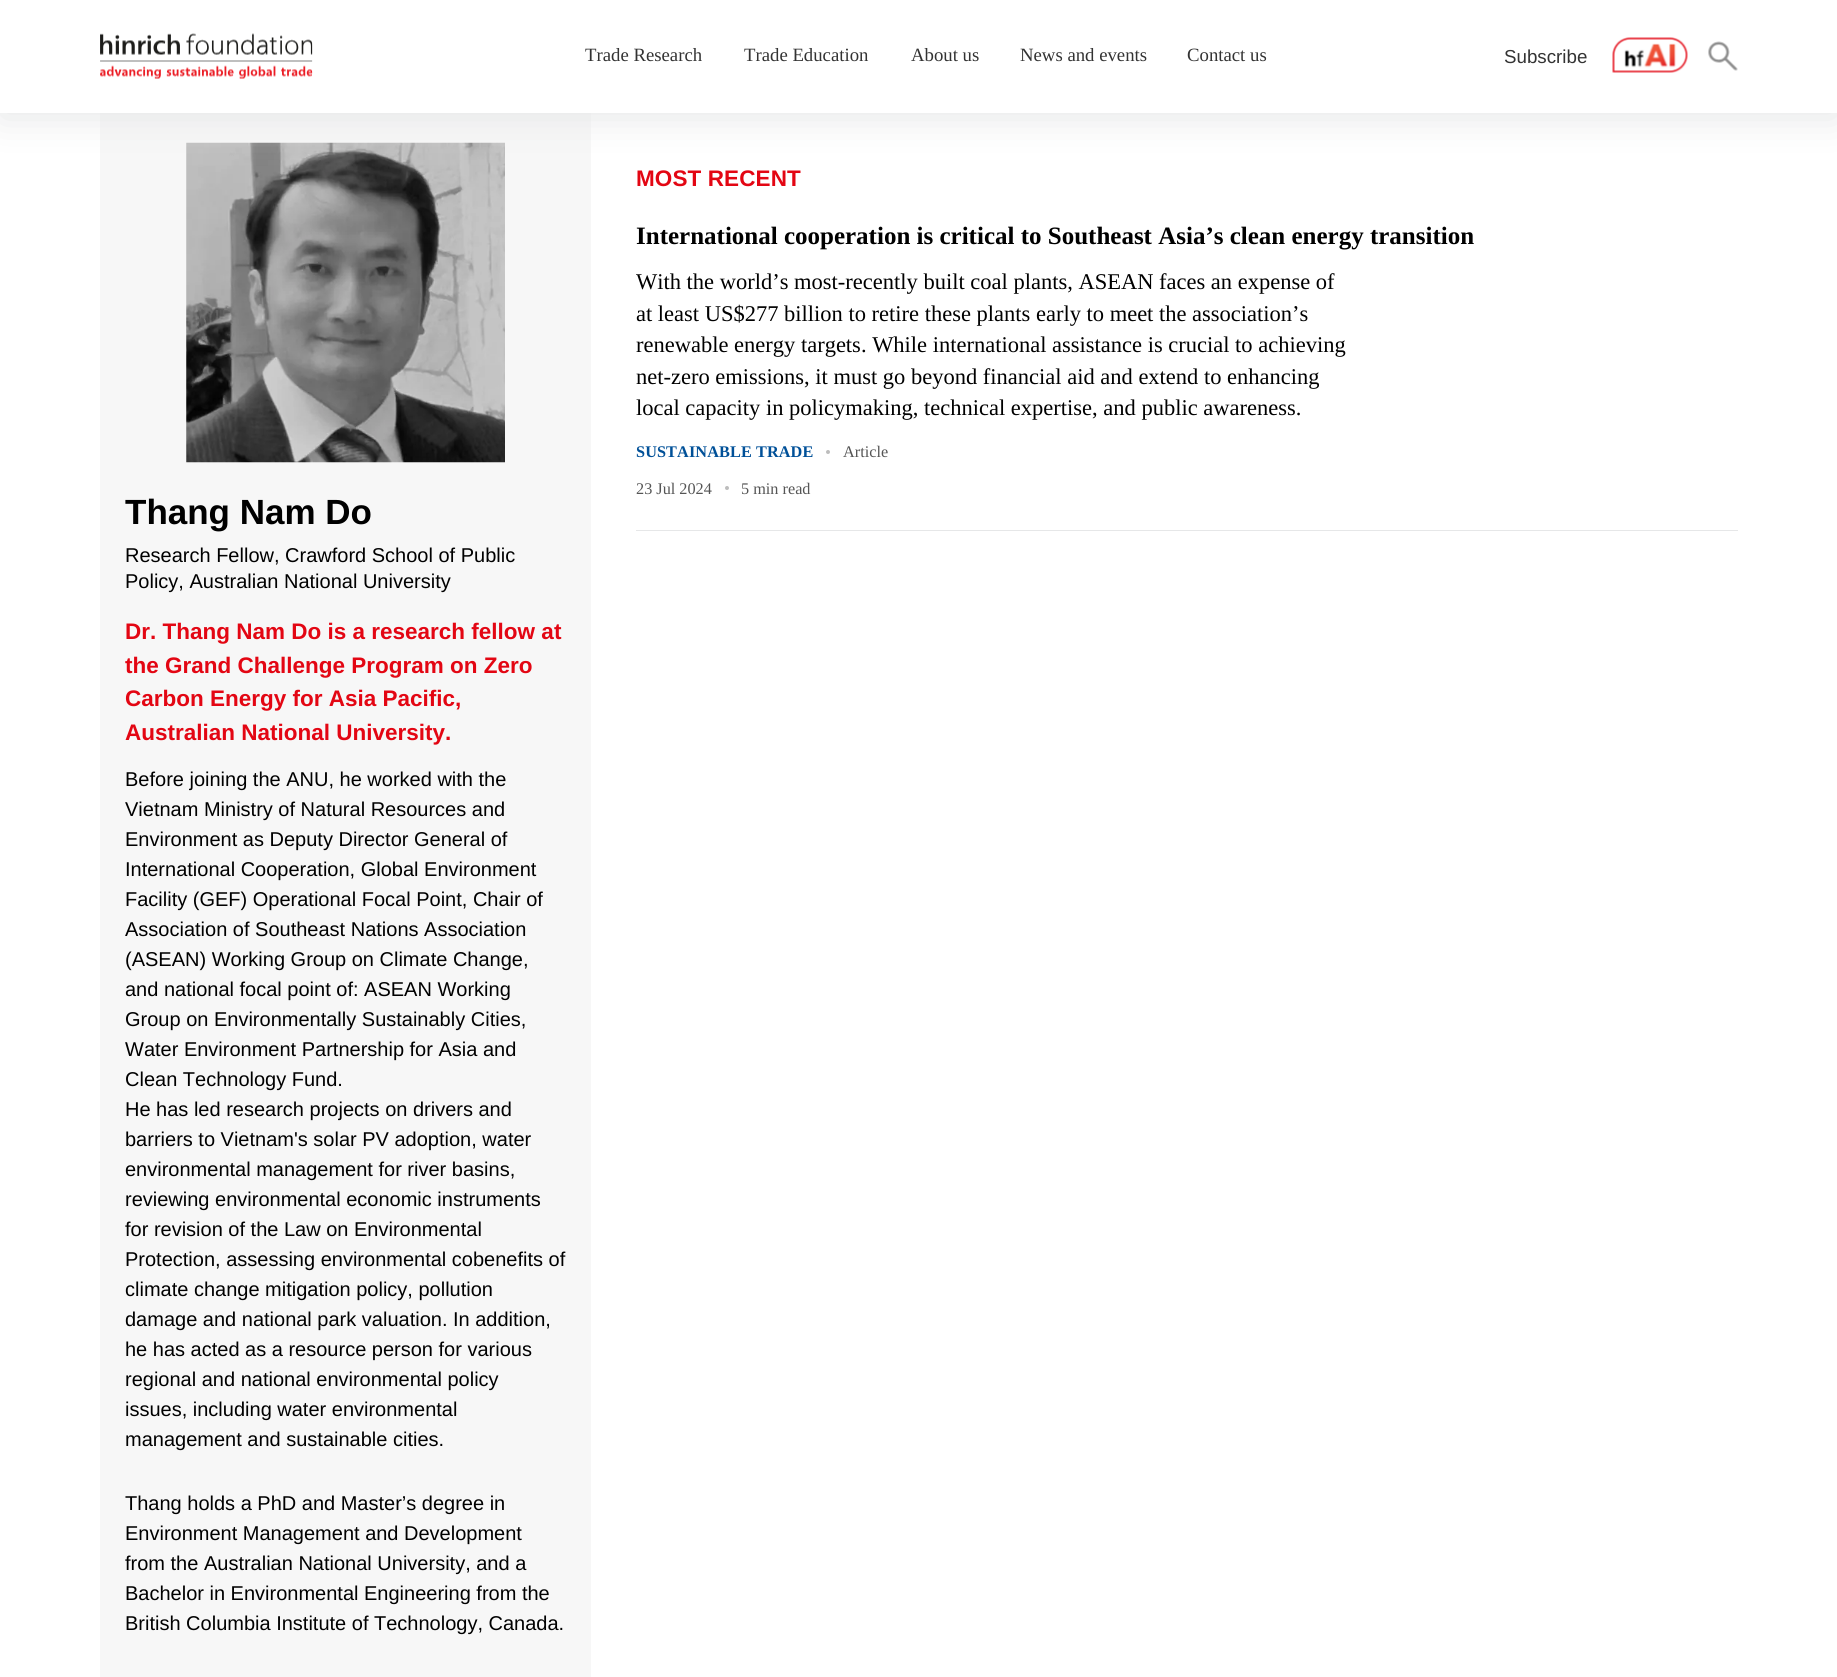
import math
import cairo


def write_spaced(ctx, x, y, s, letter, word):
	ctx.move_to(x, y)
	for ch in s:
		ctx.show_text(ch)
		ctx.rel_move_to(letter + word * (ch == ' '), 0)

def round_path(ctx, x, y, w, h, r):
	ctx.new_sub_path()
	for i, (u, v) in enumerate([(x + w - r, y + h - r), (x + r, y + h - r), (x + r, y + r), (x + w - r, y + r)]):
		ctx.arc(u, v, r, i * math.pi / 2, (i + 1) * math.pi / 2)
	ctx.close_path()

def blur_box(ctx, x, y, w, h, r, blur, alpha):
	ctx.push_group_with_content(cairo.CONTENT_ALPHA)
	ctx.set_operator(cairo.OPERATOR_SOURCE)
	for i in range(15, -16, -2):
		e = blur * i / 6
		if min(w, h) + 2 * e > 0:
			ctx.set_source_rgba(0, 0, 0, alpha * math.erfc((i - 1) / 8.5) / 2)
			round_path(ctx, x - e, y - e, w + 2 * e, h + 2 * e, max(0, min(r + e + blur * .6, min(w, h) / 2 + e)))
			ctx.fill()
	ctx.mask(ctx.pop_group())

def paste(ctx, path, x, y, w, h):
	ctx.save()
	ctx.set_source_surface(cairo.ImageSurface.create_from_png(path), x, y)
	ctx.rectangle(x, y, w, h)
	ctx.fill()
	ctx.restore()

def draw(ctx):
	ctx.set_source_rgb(1, 1, 1)
	ctx.paint()
	ctx.set_source_rgb(0.965, 0.965, 0.965)
	ctx.rectangle(100, 113, 491, 1564)
	ctx.fill()
	paste(ctx, 'media/4.png', 186, 142, 319, 321)
	ctx.set_source_rgb(0.902, 0.906, 0.91)
	blur_box(ctx, 0, 5, 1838, 113, 0, 19, 1)
	ctx.set_source_rgb(1, 1, 1)
	ctx.rectangle(0, 0, 1837, 113)
	ctx.fill()
	paste(ctx, 'media/1.png', 100, 33, 213, 46)
	ctx.select_font_face('Liberation Serif')
	ctx.set_font_size(18.75)
	ctx.set_source_rgb(0.2, 0.2, 0.2)
	for x, y, s in [
		(585, 61, 'Trade Research'),
		(744, 61, 'Trade Education'),
		(911, 61, 'About us'),
		(1020, 61, 'News and events'),
		(1187, 61, 'Contact us'),
	]:
		ctx.move_to(x, y)
		ctx.show_text(s)
	ctx.select_font_face('Liberation Sans')
	ctx.move_to(1504, 63)
	ctx.show_text('Subscribe')
	paste(ctx, 'media/2.png', 1612, 37, 76, 36)
	paste(ctx, 'media/3.png', 1708, 41, 30, 30)
	ctx.select_font_face('Liberation Sans', cairo.FONT_SLANT_NORMAL, cairo.FONT_WEIGHT_BOLD)
	ctx.set_font_size(22.5)
	ctx.set_source_rgb(0.89, 0.024, 0.075)
	write_spaced(ctx, 636, 186, 'MOST RECENT', 0.1, 0)
	ctx.set_source_rgb(0.902, 0.906, 0.91)
	ctx.rectangle(636, 530, 1102, 1)
	ctx.fill()
	ctx.select_font_face('Liberation Serif', cairo.FONT_SLANT_NORMAL, cairo.FONT_WEIGHT_BOLD)
	ctx.set_font_size(25)
	ctx.set_source_rgb(0, 0, 0)
	ctx.move_to(636, 244)
	ctx.show_text('International cooperation is critical to Southeast Asia’s clean energy transition')
	ctx.select_font_face('Liberation Serif')
	ctx.set_font_size(22.5)
	for x, y, s in [
		(636, 289, 'With the world’s most-recently built coal plants, ASEAN faces an expense of'),
		(636, 321, 'at least US$277 billion to retire these plants early to meet the association’s'),
		(636, 352, 'renewable energy targets. While international assistance is crucial to achieving'),
		(636, 384, 'net-zero emissions, it must go beyond financial aid and extend to enhancing'),
		(636, 415, 'local capacity in policymaking, technical expertise, and public awareness.'),
	]:
		ctx.move_to(x, y)
		ctx.show_text(s)
	ctx.select_font_face('Liberation Serif', cairo.FONT_SLANT_NORMAL, cairo.FONT_WEIGHT_BOLD)
	ctx.set_font_size(16.25)
	ctx.set_source_rgb(0, 0.314, 0.596)
	write_spaced(ctx, 636, 457, 'SUSTAINABLE TRADE', 0.1, 0)
	ctx.set_source_rgb(0.741, 0.741, 0.741)
	ctx.new_path()
	ctx.arc(828, 452, 2, 0, 2 * math.pi)
	ctx.fill()
	ctx.select_font_face('Liberation Serif')
	ctx.set_source_rgb(0.333, 0.333, 0.333)
	ctx.move_to(843, 457)
	ctx.show_text('Article')
	ctx.move_to(636, 494)
	ctx.show_text('23 Jul 2024')
	ctx.set_source_rgb(0.741, 0.741, 0.741)
	ctx.new_path()
	ctx.arc(727, 488, 2, 0, 2 * math.pi)
	ctx.fill()
	ctx.set_source_rgb(0.333, 0.333, 0.333)
	ctx.move_to(741, 494)
	ctx.show_text('5 min read')
	ctx.select_font_face('Liberation Sans', cairo.FONT_SLANT_NORMAL, cairo.FONT_WEIGHT_BOLD)
	ctx.set_font_size(35)
	ctx.set_source_rgb(0, 0, 0)
	ctx.move_to(125, 524)
	ctx.show_text('Thang Nam Do')
	ctx.select_font_face('Liberation Sans')
	ctx.set_font_size(20)
	ctx.move_to(125, 562)
	ctx.show_text('Research Fellow, Crawford School of Public')
	ctx.move_to(125, 588)
	ctx.show_text('Policy, Australian National University')
	ctx.select_font_face('Liberation Sans', cairo.FONT_SLANT_NORMAL, cairo.FONT_WEIGHT_BOLD)
	ctx.set_font_size(22.5)
	ctx.set_source_rgb(0.89, 0.024, 0.075)
	for x, y, s in [
		(125, 639, 'Dr. Thang Nam Do is a research fellow at'),
		(125, 673, 'the Grand Challenge Program on Zero'),
		(125, 706, 'Carbon Energy for Asia Pacific,'),
		(125, 740, 'Australian National University.'),
	]:
		ctx.move_to(x, y)
		ctx.show_text(s)
	ctx.select_font_face('Liberation Sans')
	ctx.set_font_size(20)
	ctx.set_source_rgb(0, 0, 0)
	for x, y, s in [
		(125, 786, 'Before joining the ANU, he worked with the'),
		(125, 816, 'Vietnam Ministry of Natural Resources and'),
		(125, 846, 'Environment as Deputy Director General of'),
		(125, 876, 'International Cooperation, Global Environment'),
		(125, 906, 'Facility (GEF) Operational Focal Point, Chair of'),
		(125, 936, 'Association of Southeast Nations Association'),
		(125, 966, '(ASEAN) Working Group on Climate Change,'),
		(125, 996, 'and national focal point of: ASEAN Working'),
		(125, 1026, 'Group on Environmentally Sustainably Cities,'),
		(125, 1056, 'Water Environment Partnership for Asia and'),
		(125, 1086, 'Clean Technology Fund.'),
		(125, 1116, 'He has led research projects on drivers and'),
		(125, 1146, 'barriers to Vietnam\'s solar PV adoption, water'),
		(125, 1176, 'environmental management for river basins,'),
		(125, 1206, 'reviewing environmental economic instruments'),
		(125, 1236, 'for revision of the Law on Environmental'),
		(125, 1266, 'Protection, assessing environmental cobenefits of'),
		(125, 1296, 'climate change mitigation policy, pollution'),
		(125, 1326, 'damage and national park valuation. In addition,'),
		(125, 1356, 'he has acted as a resource person for various'),
		(125, 1386, 'regional and national environmental policy'),
		(125, 1416, 'issues, including water environmental'),
		(125, 1446, 'management and sustainable cities.'),
		(125, 1510, 'Thang holds a PhD and Master’s degree in'),
		(125, 1540, 'Environment Management and Development'),
		(125, 1570, 'from the Australian National University, and a'),
		(125, 1600, 'Bachelor in Environmental Engineering from the'),
		(125, 1630, 'British Columbia Institute of Technology, Canada.'),
	]:
		ctx.move_to(x, y)
		ctx.show_text(s)


surface = cairo.ImageSurface(cairo.FORMAT_RGB24, 1837, 1677)
ctx = cairo.Context(surface)
options = cairo.FontOptions()
options.set_hint_metrics(cairo.HINT_METRICS_OFF)
options.set_hint_style(cairo.HINT_STYLE_NONE)
ctx.set_font_options(options)
ctx.set_miter_limit(4)
draw(ctx)
surface.write_to_png('image.png')
